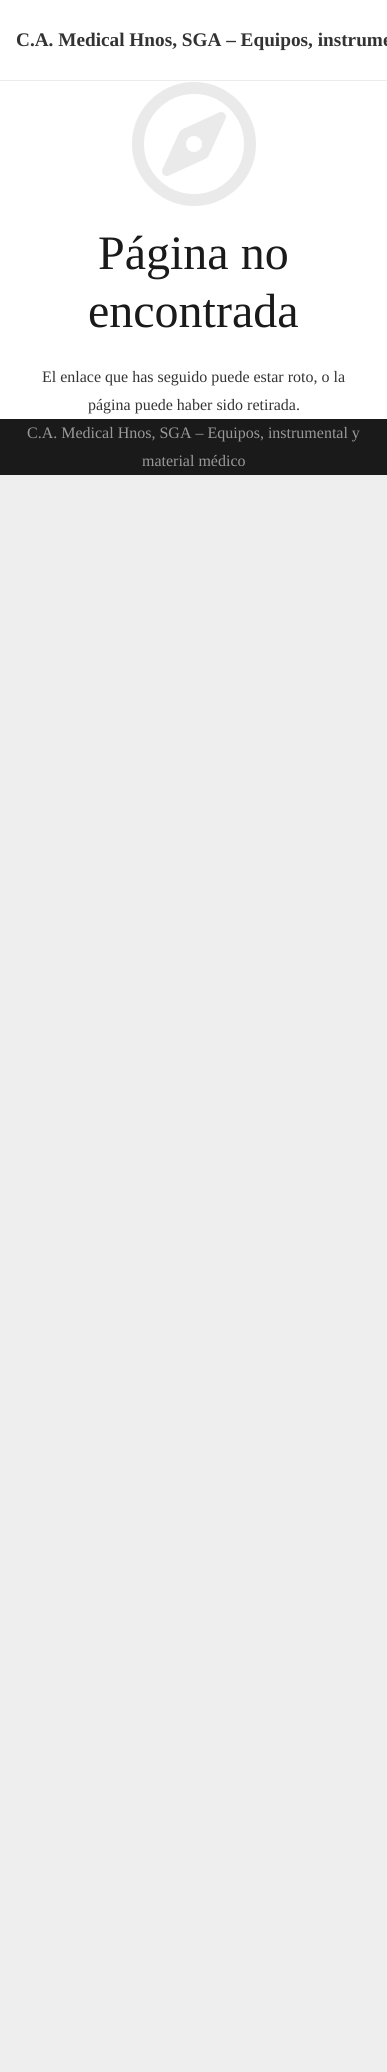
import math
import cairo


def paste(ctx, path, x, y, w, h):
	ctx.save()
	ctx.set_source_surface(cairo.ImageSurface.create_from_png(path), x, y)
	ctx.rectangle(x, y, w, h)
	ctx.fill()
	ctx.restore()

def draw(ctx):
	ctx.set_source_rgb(0.933, 0.933, 0.933)
	ctx.paint()
	ctx.set_source_rgb(1, 1, 1)
	ctx.rectangle(0, 0, 387, 419)
	ctx.fill()
	ctx.set_source_rgb(0.922, 0.922, 0.922)
	ctx.rectangle(0, 80, 387, 1)
	ctx.fill()
	ctx.select_font_face('Liberation Serif', cairo.FONT_SLANT_NORMAL, cairo.FONT_WEIGHT_BOLD)
	ctx.set_font_size(19.25)
	ctx.set_source_rgb(0.2, 0.2, 0.2)
	ctx.move_to(16, 46)
	ctx.show_text('C.A. Medical Hnos, SGA – Equipos, instrume')
	paste(ctx, 'media/1.png', 132, 82, 124, 124)
	ctx.select_font_face('Liberation Serif')
	ctx.set_font_size(48)
	ctx.set_source_rgb(0.102, 0.102, 0.102)
	ctx.move_to(98, 269)
	ctx.show_text('Página no')
	ctx.move_to(88, 327)
	ctx.show_text('encontrada')
	ctx.set_font_size(16)
	ctx.set_source_rgb(0.2, 0.2, 0.2)
	ctx.move_to(42, 382)
	ctx.show_text('El enlace que has seguido puede estar roto, o la')
	ctx.move_to(88, 410)
	ctx.show_text('página puede haber sido retirada.')
	ctx.set_source_rgb(0.102, 0.102, 0.102)
	ctx.rectangle(0, 419, 387, 56)
	ctx.fill()
	ctx.set_source_rgb(0.6, 0.6, 0.6)
	ctx.move_to(27, 438)
	ctx.show_text('C.A. Medical Hnos, SGA – Equipos, instrumental y')
	ctx.move_to(142, 466)
	ctx.show_text('material médico')


surface = cairo.ImageSurface(cairo.FORMAT_RGB24, 387, 2072)
ctx = cairo.Context(surface)
options = cairo.FontOptions()
options.set_hint_metrics(cairo.HINT_METRICS_OFF)
options.set_hint_style(cairo.HINT_STYLE_NONE)
ctx.set_font_options(options)
ctx.set_miter_limit(4)
draw(ctx)
surface.write_to_png('image.png')
